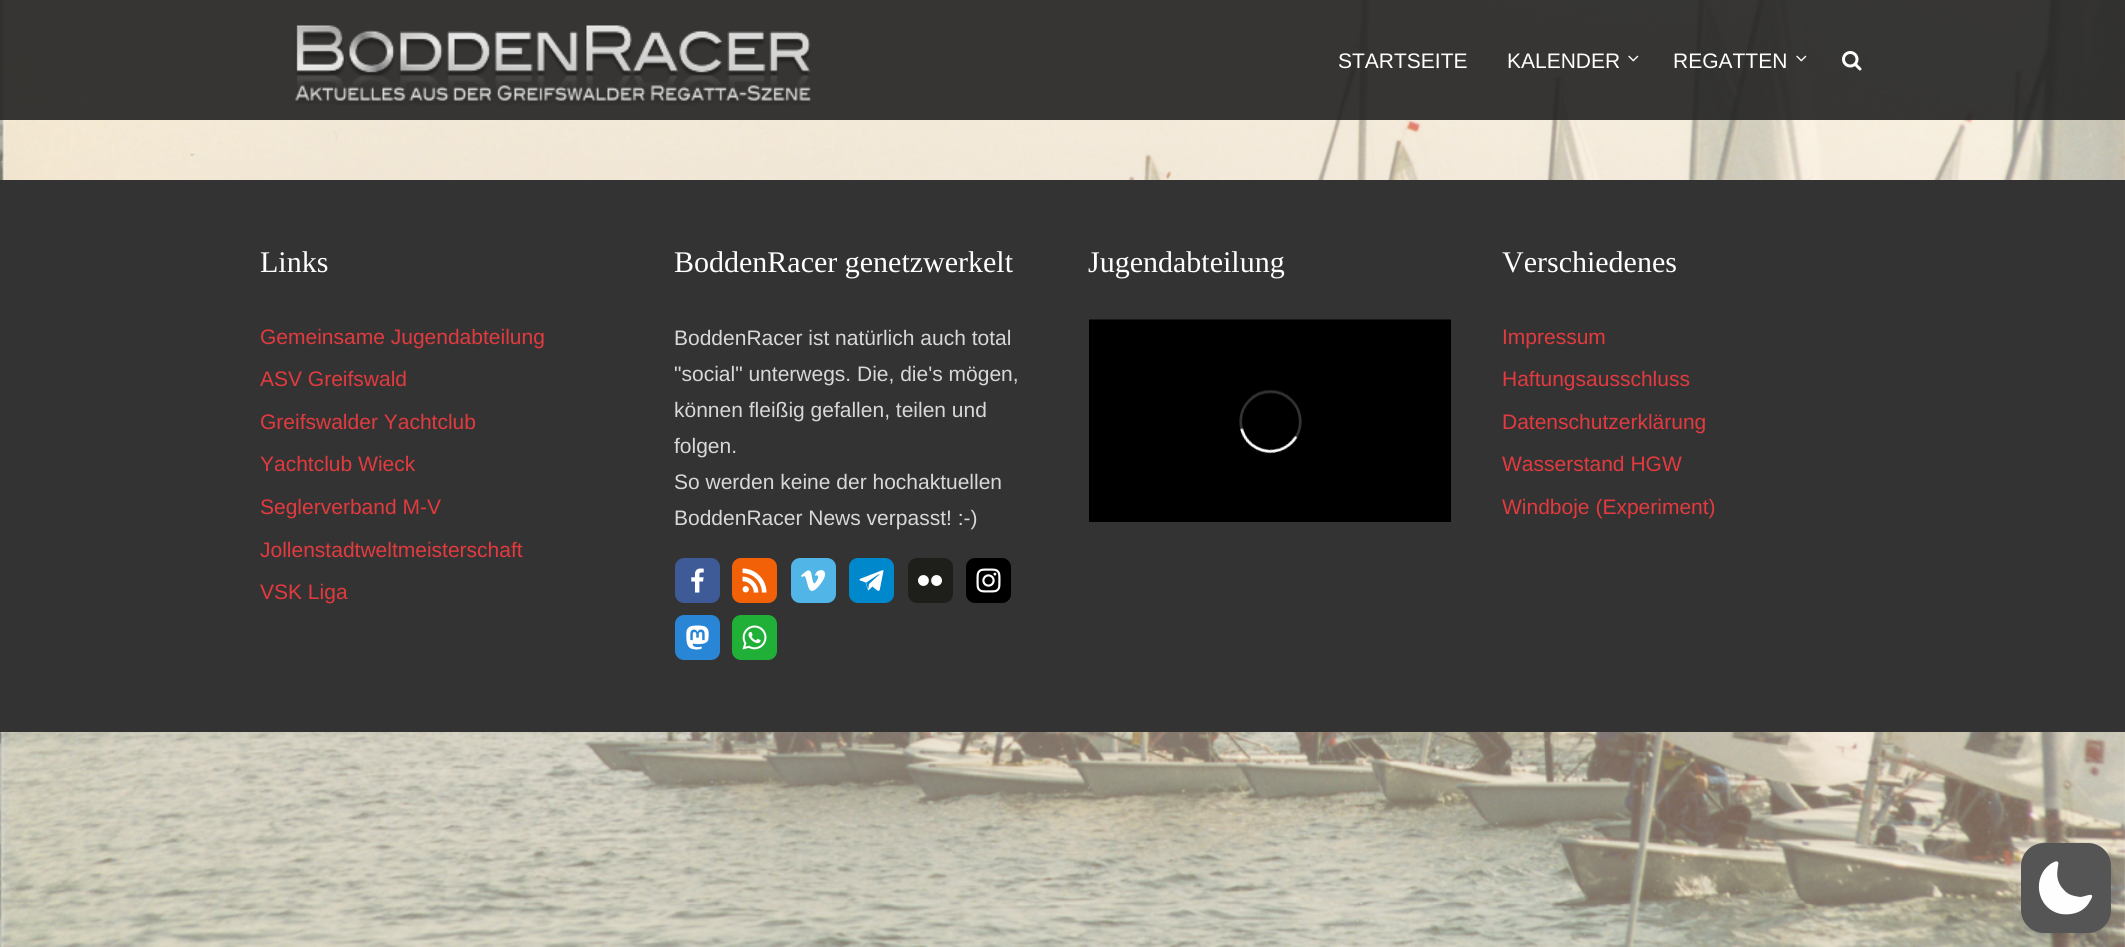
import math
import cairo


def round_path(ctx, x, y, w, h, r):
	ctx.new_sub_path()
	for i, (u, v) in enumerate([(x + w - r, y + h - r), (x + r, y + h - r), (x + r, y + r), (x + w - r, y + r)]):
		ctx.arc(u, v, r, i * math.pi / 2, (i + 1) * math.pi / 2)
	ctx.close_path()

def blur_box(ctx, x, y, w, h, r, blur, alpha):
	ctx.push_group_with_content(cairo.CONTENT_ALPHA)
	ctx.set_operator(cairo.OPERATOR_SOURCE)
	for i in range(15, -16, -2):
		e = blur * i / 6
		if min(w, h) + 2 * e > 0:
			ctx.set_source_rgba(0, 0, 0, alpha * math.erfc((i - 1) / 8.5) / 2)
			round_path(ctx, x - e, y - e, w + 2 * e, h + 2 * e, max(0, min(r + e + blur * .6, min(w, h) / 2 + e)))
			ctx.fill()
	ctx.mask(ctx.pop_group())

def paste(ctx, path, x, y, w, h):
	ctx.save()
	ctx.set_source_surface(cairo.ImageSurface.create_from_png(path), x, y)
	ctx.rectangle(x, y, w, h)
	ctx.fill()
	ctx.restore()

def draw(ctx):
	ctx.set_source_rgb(1, 1, 1)
	ctx.paint()
	paste(ctx, 'media/1.png', 0, 0, 2125, 947)
	ctx.set_source_rgba(0.133, 0.133, 0.133, 0.9)
	ctx.rectangle(0, 0, 2125, 120)
	ctx.fill()
	paste(ctx, 'media/2.png', 295, 25, 516, 80)
	ctx.select_font_face('Liberation Sans')
	ctx.set_font_size(21)
	ctx.set_source_rgb(1, 1, 1)
	ctx.move_to(1338, 68)
	ctx.show_text('STARTSEITE')
	ctx.move_to(1507, 68)
	ctx.show_text('KALENDER')
	paste(ctx, 'media/3.png', 1628, 55, 11, 7)
	ctx.move_to(1673, 68)
	ctx.show_text('REGATTEN')
	paste(ctx, 'media/4.png', 1796, 55, 11, 7)
	paste(ctx, 'media/5.png', 1842, 51, 20, 20)
	ctx.set_source_rgb(0.2, 0.2, 0.2)
	ctx.rectangle(0, 180, 2125, 552)
	ctx.fill()
	ctx.select_font_face('Liberation Serif')
	ctx.set_font_size(30)
	ctx.set_source_rgb(1, 1, 1)
	ctx.move_to(260, 272)
	ctx.show_text('Links')
	ctx.select_font_face('Liberation Sans')
	ctx.set_font_size(21)
	ctx.set_source_rgb(0.886, 0.227, 0.243)
	for x, y, s in [
		(260, 344, 'Gemeinsame Jugendabteilung'),
		(260, 386, 'ASV Greifswald'),
		(260, 429, 'Greifswalder Yachtclub'),
		(260, 471, 'Yachtclub Wieck'),
		(260, 514, 'Seglerverband M-V'),
		(260, 557, 'Jollenstadtweltmeisterschaft'),
		(260, 599, 'VSK Liga'),
	]:
		ctx.move_to(x, y)
		ctx.show_text(s)
	ctx.select_font_face('Liberation Serif')
	ctx.set_font_size(30)
	ctx.set_source_rgb(1, 1, 1)
	ctx.move_to(674, 272)
	ctx.show_text('BoddenRacer genetzwerkelt')
	ctx.select_font_face('Liberation Sans')
	ctx.set_font_size(21)
	ctx.set_source_rgb(0.847, 0.847, 0.847)
	for x, y, s in [
		(674, 345, 'BoddenRacer ist natürlich auch total'),
		(674, 381, '"social" unterwegs. Die, die\'s mögen,'),
		(674, 417, 'können fleißig gefallen, teilen und'),
		(674, 453, 'folgen.'),
		(674, 489, 'So werden keine der hochaktuellen'),
		(674, 525, 'BoddenRacer News verpasst! :-)'),
	]:
		ctx.move_to(x, y)
		ctx.show_text(s)
	ctx.set_source_rgb(0.243, 0.357, 0.596)
	round_path(ctx, 675, 558, 45, 45, 9)
	ctx.fill()
	paste(ctx, 'media/6.png', 691, 568, 13, 25)
	ctx.set_source_rgb(0.949, 0.38, 0.035)
	round_path(ctx, 732, 558, 45, 45, 9)
	ctx.fill()
	paste(ctx, 'media/7.png', 742, 568, 25, 25)
	ctx.set_source_rgb(0.318, 0.71, 0.906)
	round_path(ctx, 791, 558, 45, 45, 9)
	ctx.fill()
	paste(ctx, 'media/8.png', 801, 570, 24, 21)
	ctx.set_source_rgb(0, 0.533, 0.8)
	round_path(ctx, 849, 558, 45, 45, 9)
	ctx.fill()
	paste(ctx, 'media/9.png', 859, 570, 25, 21)
	ctx.set_source_rgb(0.118, 0.118, 0.106)
	round_path(ctx, 908, 558, 45, 45, 9)
	ctx.fill()
	paste(ctx, 'media/10.png', 918, 575, 24, 11)
	ctx.set_source_rgb(0, 0, 0)
	round_path(ctx, 966, 558, 45, 45, 9)
	ctx.fill()
	paste(ctx, 'media/11.png', 976, 568, 25, 25)
	ctx.set_source_rgb(0.161, 0.525, 0.839)
	round_path(ctx, 675, 615, 45, 45, 9)
	ctx.fill()
	paste(ctx, 'media/12.png', 686, 625, 23, 25)
	ctx.set_source_rgb(0.125, 0.69, 0.22)
	round_path(ctx, 732, 615, 45, 45, 9)
	ctx.fill()
	paste(ctx, 'media/13.png', 742, 625, 25, 25)
	ctx.select_font_face('Liberation Serif')
	ctx.set_font_size(30)
	ctx.set_source_rgb(1, 1, 1)
	ctx.move_to(1088, 272)
	ctx.show_text('Jugendabteilung')
	paste(ctx, 'media/14.png', 1089, 319, 362, 203)
	ctx.move_to(1502, 272)
	ctx.show_text('Verschiedenes')
	ctx.select_font_face('Liberation Sans')
	ctx.set_font_size(21)
	ctx.set_source_rgb(0.886, 0.227, 0.243)
	for x, y, s in [
		(1502, 344, 'Impressum'),
		(1502, 386, 'Haftungsausschluss'),
		(1502, 429, 'Datenschutzerklärung'),
		(1502, 471, 'Wasserstand HGW'),
		(1502, 514, 'Windboje (Experiment)'),
	]:
		ctx.move_to(x, y)
		ctx.show_text(s)
	ctx.set_source_rgb(0, 0, 0)
	blur_box(ctx, 2027, 855, 78, 78, 17, 4.5, 0.1)
	blur_box(ctx, 2025, 863, 81, 81, 18, 11, 0.1)
	ctx.set_source_rgb(0.333, 0.333, 0.333)
	round_path(ctx, 2021, 843, 90, 90, 23)
	ctx.fill()
	ctx.set_source_rgb(0.996, 0.996, 0.996)
	ctx.set_fill_rule(cairo.FILL_RULE_EVEN_ODD)
	ctx.new_path()
	ctx.move_to(2058, 862)
	ctx.curve_to(2060, 864, 2052, 878, 2064, 890)
	ctx.curve_to(2068, 895, 2074, 896, 2080, 897)
	ctx.curve_to(2085, 897, 2097, 890, 2090, 901)
	ctx.curve_to(2088, 905, 2085, 908, 2082, 910)
	ctx.curve_to(2076, 914, 2068, 915, 2061, 914)
	ctx.curve_to(2036, 909, 2031, 876, 2052, 863)
	ctx.curve_to(2053, 863, 2056, 860, 2058, 862)
	ctx.close_path()
	ctx.fill()


surface = cairo.ImageSurface(cairo.FORMAT_RGB24, 2125, 947)
ctx = cairo.Context(surface)
options = cairo.FontOptions()
options.set_hint_metrics(cairo.HINT_METRICS_OFF)
options.set_hint_style(cairo.HINT_STYLE_NONE)
ctx.set_font_options(options)
ctx.set_miter_limit(4)
draw(ctx)
surface.write_to_png('image.png')
